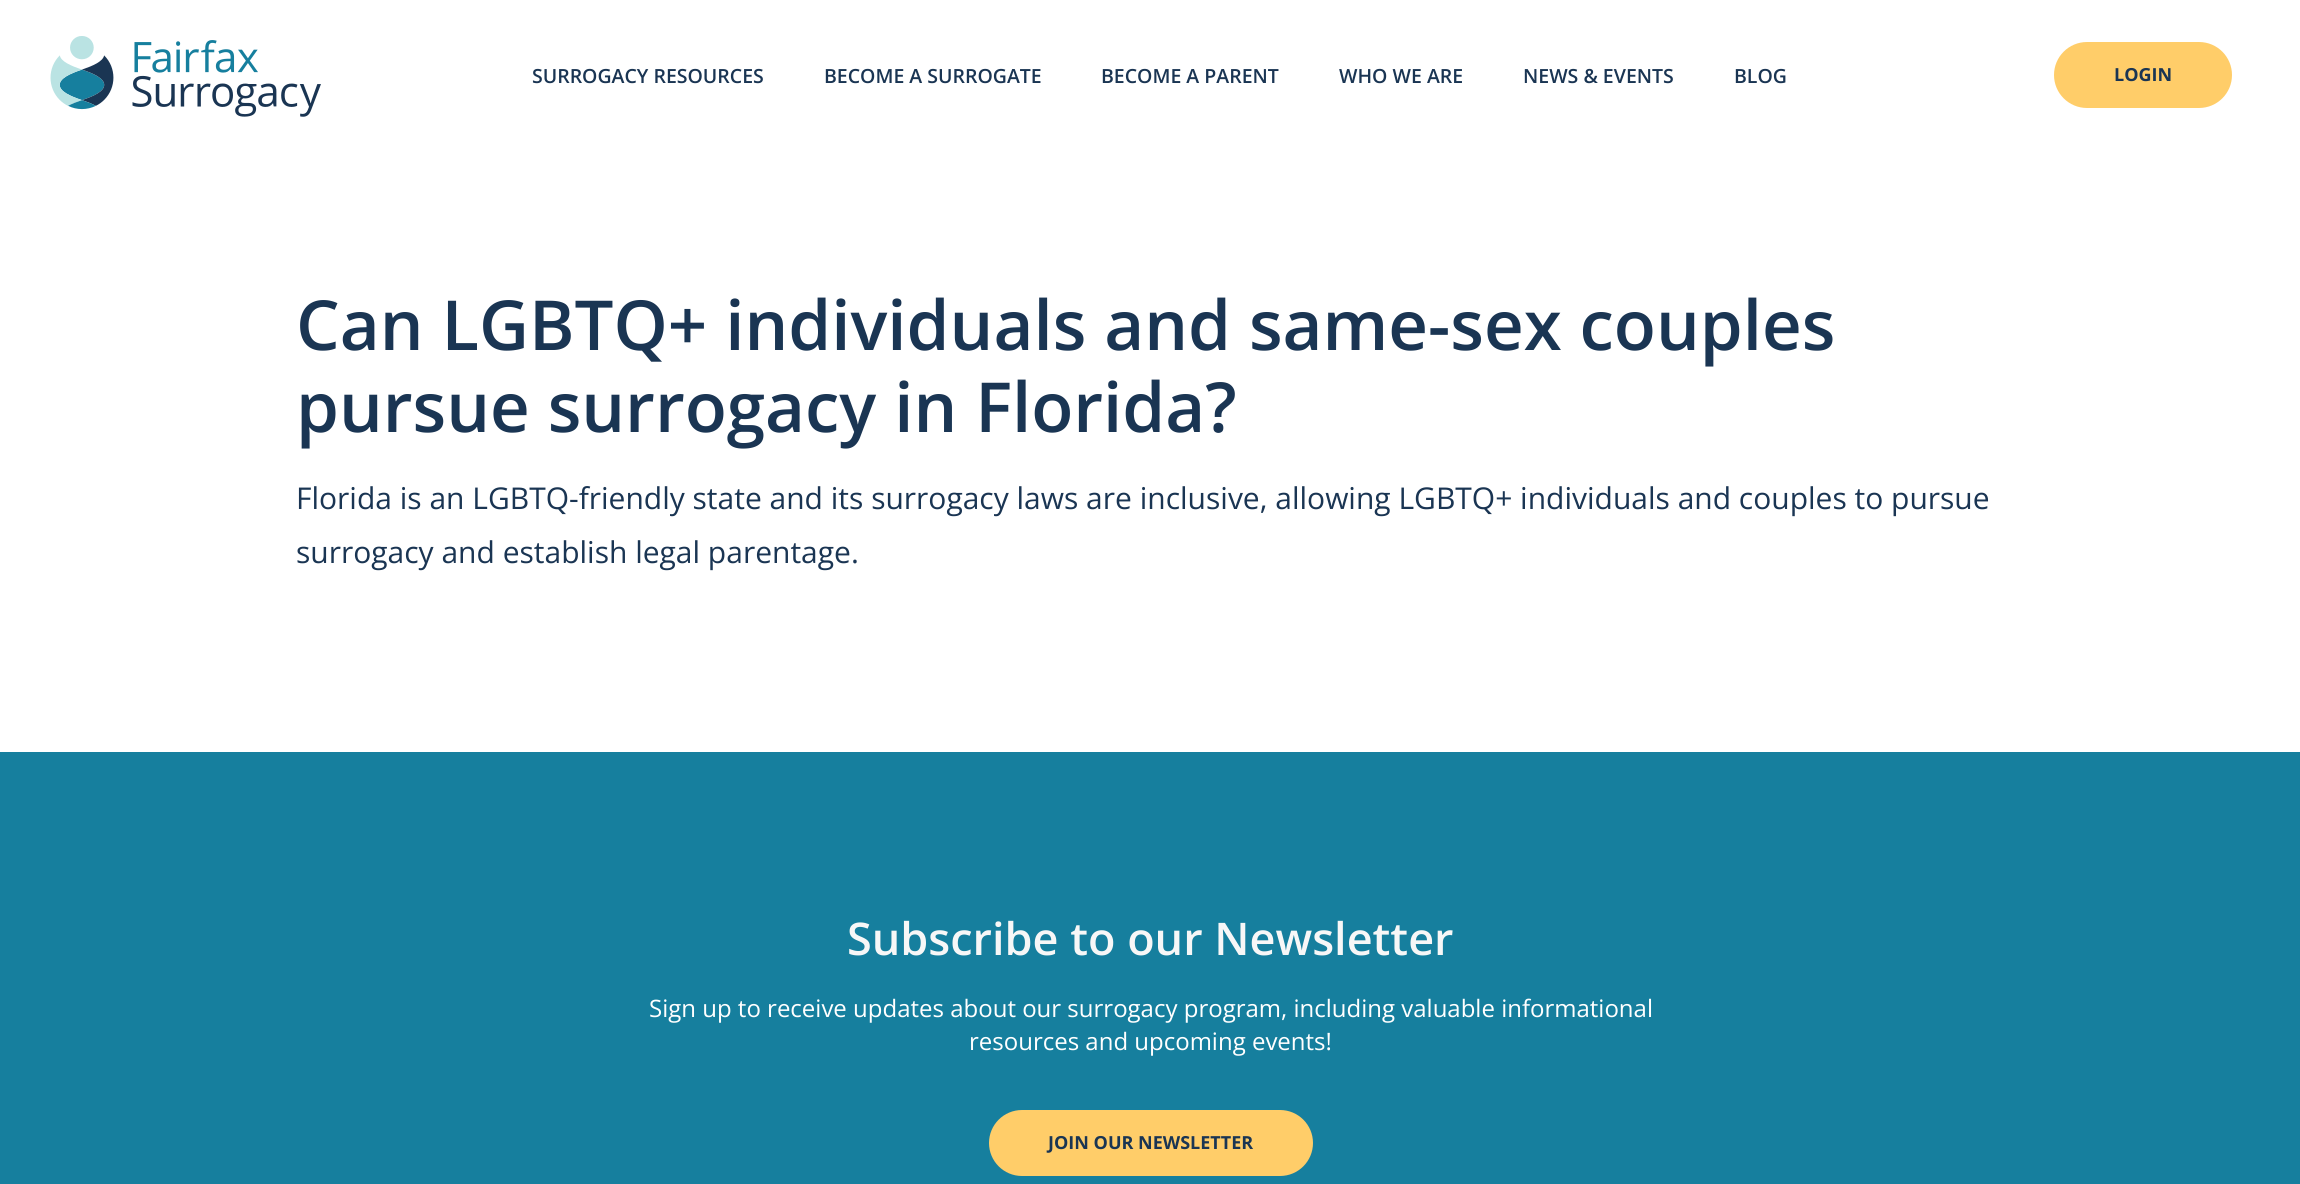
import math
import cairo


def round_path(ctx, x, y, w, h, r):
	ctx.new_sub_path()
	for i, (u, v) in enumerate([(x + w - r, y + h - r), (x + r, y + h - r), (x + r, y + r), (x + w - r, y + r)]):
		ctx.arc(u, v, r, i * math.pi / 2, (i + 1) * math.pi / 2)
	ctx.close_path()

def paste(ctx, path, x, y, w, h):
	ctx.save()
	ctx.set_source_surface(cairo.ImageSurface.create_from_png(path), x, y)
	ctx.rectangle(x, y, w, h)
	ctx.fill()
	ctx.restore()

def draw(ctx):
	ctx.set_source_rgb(1, 1, 1)
	ctx.paint()
	paste(ctx, 'media/1.png', 50, 36, 271, 81)
	ctx.select_font_face('Open Sans SemiBold')
	ctx.set_font_size(19.5)
	ctx.set_source_rgb(0.102, 0.208, 0.325)
	for x, y, s in [
		(532, 83, 'SURROGACY RESOURCES'),
		(824, 83, 'BECOME A SURROGATE'),
		(1101, 83, 'BECOME A PARENT'),
		(1339, 83, 'WHO WE ARE'),
		(1523, 83, 'NEWS & EVENTS'),
		(1734, 83, 'BLOG'),
	]:
		ctx.move_to(x, y)
		ctx.show_text(s)
	ctx.set_source_rgb(1, 0.804, 0.412)
	round_path(ctx, 2054, 42, 178, 66, 33)
	ctx.fill()
	ctx.select_font_face('Open Sans', cairo.FONT_SLANT_NORMAL, cairo.FONT_WEIGHT_BOLD)
	ctx.set_font_size(18)
	ctx.set_source_rgb(0.102, 0.208, 0.325)
	ctx.move_to(2114, 81)
	ctx.show_text('LOGIN')
	ctx.select_font_face('Open Sans SemiBold')
	ctx.set_font_size(69)
	ctx.move_to(296, 350)
	ctx.show_text('Can LGBTQ+ individuals and same-sex couples')
	ctx.move_to(296, 432)
	ctx.show_text('pursue surrogacy in Florida?')
	ctx.select_font_face('Open Sans')
	ctx.set_font_size(30)
	ctx.move_to(296, 509)
	ctx.show_text('Florida is an LGBTQ-friendly state and its surrogacy laws are inclusive, allowing LGBTQ+ individuals and couples to pursue')
	ctx.move_to(296, 563)
	ctx.show_text('surrogacy and establish legal parentage.')
	ctx.set_source_rgb(0.086, 0.498, 0.62)
	ctx.rectangle(0, 752, 2300, 432)
	ctx.fill()
	ctx.select_font_face('Open Sans SemiBold')
	ctx.set_font_size(45)
	ctx.set_source_rgb(0.965, 0.965, 0.965)
	ctx.move_to(847, 955)
	ctx.show_text('Subscribe to our Newsletter')
	ctx.select_font_face('Open Sans')
	ctx.set_font_size(24)
	ctx.set_source_rgb(1, 1, 1)
	ctx.move_to(649, 1017)
	ctx.show_text('Sign up to receive updates about our surrogacy program, including valuable informational')
	ctx.move_to(969, 1050)
	ctx.show_text('resources and upcoming events!')
	ctx.set_source_rgb(1, 0.804, 0.412)
	round_path(ctx, 989, 1110, 324, 66, 33)
	ctx.fill()
	ctx.select_font_face('Open Sans', cairo.FONT_SLANT_NORMAL, cairo.FONT_WEIGHT_BOLD)
	ctx.set_font_size(18)
	ctx.set_source_rgb(0.102, 0.208, 0.325)
	ctx.move_to(1048, 1149)
	ctx.show_text('JOIN OUR NEWSLETTER')


surface = cairo.ImageSurface(cairo.FORMAT_RGB24, 2300, 1184)
ctx = cairo.Context(surface)
options = cairo.FontOptions()
options.set_hint_metrics(cairo.HINT_METRICS_OFF)
options.set_hint_style(cairo.HINT_STYLE_NONE)
ctx.set_font_options(options)
ctx.set_miter_limit(4)
draw(ctx)
surface.write_to_png('image.png')
